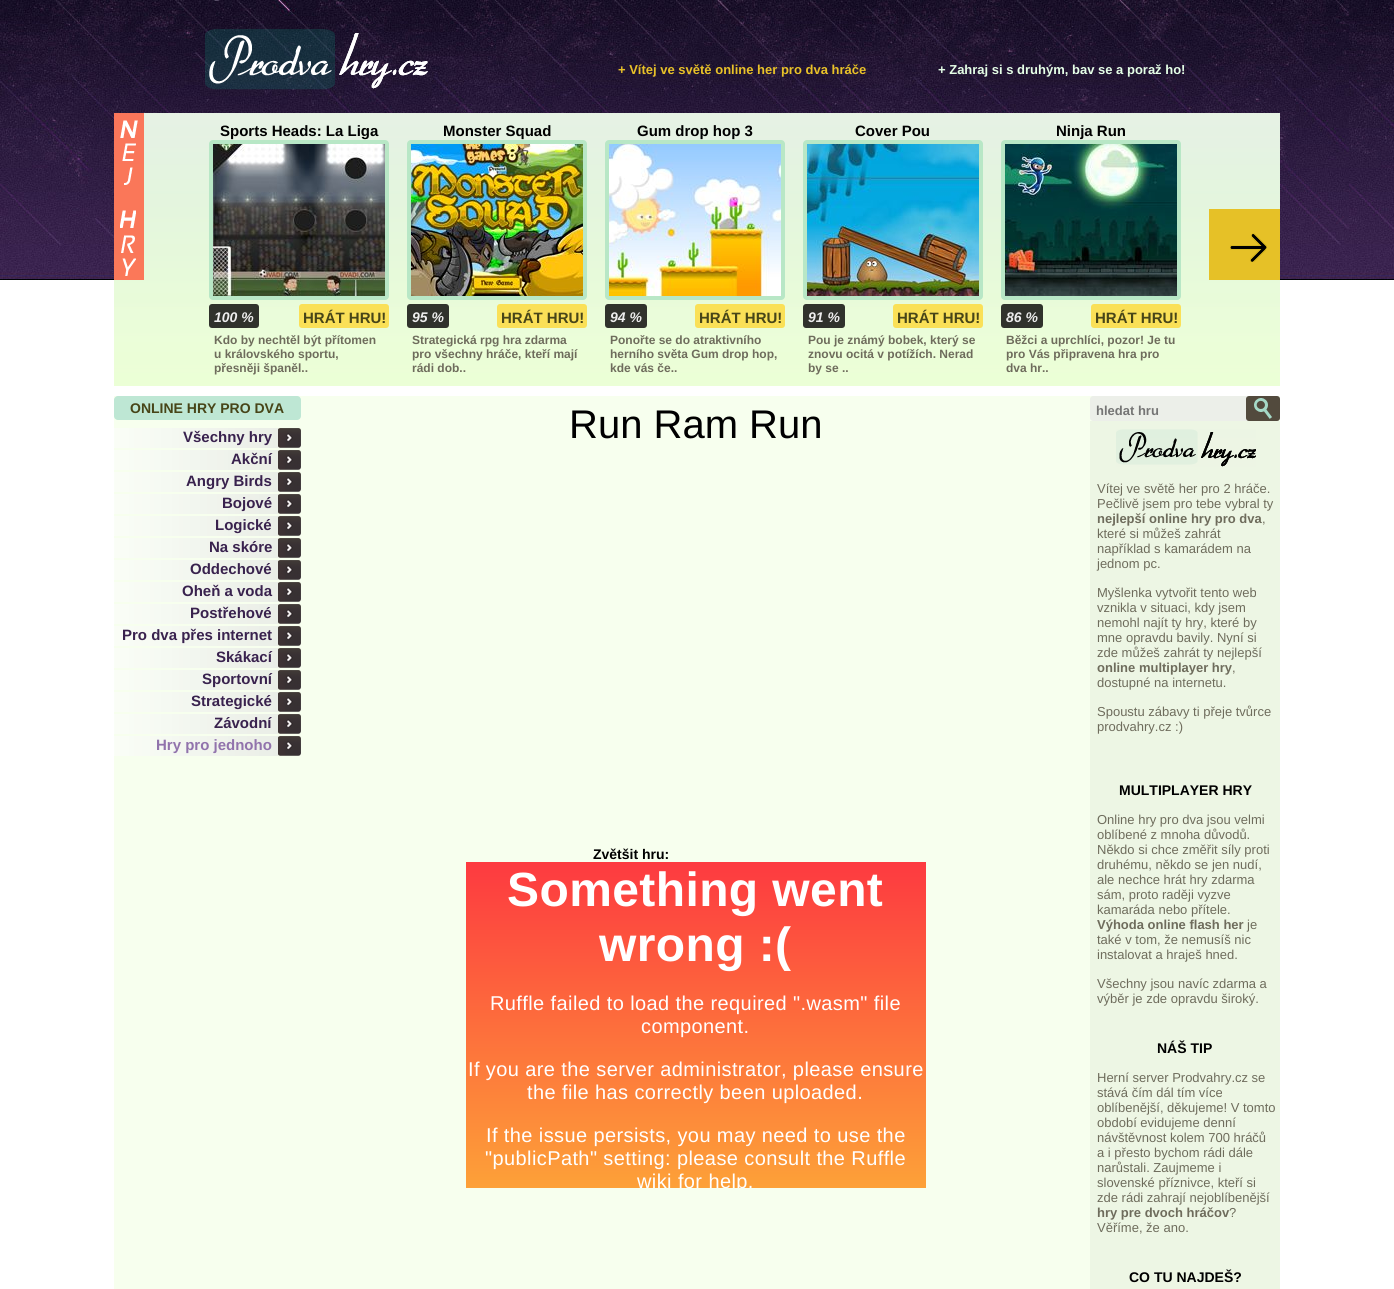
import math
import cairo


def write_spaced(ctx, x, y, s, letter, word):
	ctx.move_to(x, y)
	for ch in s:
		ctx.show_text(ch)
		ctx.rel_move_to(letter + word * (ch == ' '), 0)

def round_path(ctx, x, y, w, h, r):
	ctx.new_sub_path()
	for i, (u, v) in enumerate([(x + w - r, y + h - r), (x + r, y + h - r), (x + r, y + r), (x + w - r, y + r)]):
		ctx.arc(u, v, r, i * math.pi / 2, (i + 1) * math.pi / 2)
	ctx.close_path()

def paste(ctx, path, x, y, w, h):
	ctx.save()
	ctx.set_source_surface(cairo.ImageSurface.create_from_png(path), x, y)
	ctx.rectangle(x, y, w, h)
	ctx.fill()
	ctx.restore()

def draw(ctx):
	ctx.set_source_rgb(1, 1, 1)
	ctx.paint()
	paste(ctx, 'media/1.png', 0, 0, 1394, 280)
	paste(ctx, 'media/2.png', 205, 29, 223, 61)
	ctx.select_font_face('Liberation Sans', cairo.FONT_SLANT_NORMAL, cairo.FONT_WEIGHT_BOLD)
	ctx.set_font_size(13)
	ctx.set_source_rgb(0.914, 0.761, 0.157)
	ctx.move_to(618, 74)
	ctx.show_text('+ Vítej ve světě online her pro dva hráče')
	ctx.set_source_rgb(0.898, 1, 0.906)
	ctx.move_to(938, 74)
	ctx.show_text('+ Zahraj si s druhým, bav se a poraž ho!')
	paste(ctx, 'media/3.png', 114, 113, 1166, 273)
	paste(ctx, 'media/4.png', 114, 113, 30, 167)
	ctx.set_font_size(15)
	ctx.set_source_rgb(0, 0, 0)
	ctx.move_to(220, 136)
	ctx.show_text('Sports Heads: La Liga')
	ctx.set_source_rgb(0.722, 0.906, 0.776)
	round_path(ctx, 209, 140, 180, 160, 4)
	ctx.fill()
	paste(ctx, 'media/5.png', 213, 144, 172, 152)
	ctx.set_source_rgb(0.188, 0.196, 0.173)
	round_path(ctx, 209, 304, 50, 24, 3)
	ctx.fill()
	ctx.select_font_face('Liberation Sans', cairo.FONT_SLANT_ITALIC, cairo.FONT_WEIGHT_BOLD)
	ctx.set_font_size(14)
	ctx.set_source_rgb(0.929, 0.929, 0.929)
	ctx.move_to(214, 322)
	ctx.show_text('100 %')
	ctx.set_source_rgb(0.98, 0.878, 0.341)
	round_path(ctx, 299, 304, 90, 24, 3)
	ctx.fill()
	ctx.select_font_face('Liberation Sans', cairo.FONT_SLANT_NORMAL, cairo.FONT_WEIGHT_BOLD)
	ctx.set_font_size(15)
	ctx.set_source_rgb(0.278, 0.271, 0.094)
	ctx.move_to(303, 323)
	ctx.show_text('HRÁT HRU!')
	ctx.set_font_size(12)
	ctx.set_source_rgb(0.431, 0.424, 0.361)
	for x, y, s in [
		(214, 344, 'Kdo by nechtěl být přítomen'),
		(214, 358, 'u královského sportu,'),
		(214, 372, 'přesněji španěl..'),
	]:
		ctx.move_to(x, y)
		ctx.show_text(s)
	ctx.set_font_size(15)
	ctx.set_source_rgb(0, 0, 0)
	ctx.move_to(443, 136)
	ctx.show_text('Monster Squad')
	ctx.set_source_rgb(0.722, 0.906, 0.776)
	round_path(ctx, 407, 140, 180, 160, 4)
	ctx.fill()
	paste(ctx, 'media/6.png', 411, 144, 172, 152)
	ctx.set_source_rgb(0.188, 0.196, 0.173)
	round_path(ctx, 407, 304, 42, 24, 3)
	ctx.fill()
	ctx.select_font_face('Liberation Sans', cairo.FONT_SLANT_ITALIC, cairo.FONT_WEIGHT_BOLD)
	ctx.set_font_size(14)
	ctx.set_source_rgb(0.929, 0.929, 0.929)
	ctx.move_to(412, 322)
	ctx.show_text('95 %')
	ctx.set_source_rgb(0.98, 0.878, 0.341)
	round_path(ctx, 497, 304, 90, 24, 3)
	ctx.fill()
	ctx.select_font_face('Liberation Sans', cairo.FONT_SLANT_NORMAL, cairo.FONT_WEIGHT_BOLD)
	ctx.set_font_size(15)
	ctx.set_source_rgb(0.278, 0.271, 0.094)
	ctx.move_to(501, 323)
	ctx.show_text('HRÁT HRU!')
	ctx.set_font_size(12)
	ctx.set_source_rgb(0.431, 0.424, 0.361)
	for x, y, s in [
		(412, 344, 'Strategická rpg hra zdarma'),
		(412, 358, 'pro všechny hráče, kteří mají'),
		(412, 372, 'rádi dob..'),
	]:
		ctx.move_to(x, y)
		ctx.show_text(s)
	ctx.set_font_size(15)
	ctx.set_source_rgb(0, 0, 0)
	ctx.move_to(637, 136)
	ctx.show_text('Gum drop hop 3')
	ctx.set_source_rgb(0.722, 0.906, 0.776)
	round_path(ctx, 605, 140, 180, 160, 4)
	ctx.fill()
	paste(ctx, 'media/7.png', 609, 144, 172, 152)
	ctx.set_source_rgb(0.188, 0.196, 0.173)
	round_path(ctx, 605, 304, 42, 24, 3)
	ctx.fill()
	ctx.select_font_face('Liberation Sans', cairo.FONT_SLANT_ITALIC, cairo.FONT_WEIGHT_BOLD)
	ctx.set_font_size(14)
	ctx.set_source_rgb(0.929, 0.929, 0.929)
	ctx.move_to(610, 322)
	ctx.show_text('94 %')
	ctx.set_source_rgb(0.98, 0.878, 0.341)
	round_path(ctx, 695, 304, 90, 24, 3)
	ctx.fill()
	ctx.select_font_face('Liberation Sans', cairo.FONT_SLANT_NORMAL, cairo.FONT_WEIGHT_BOLD)
	ctx.set_font_size(15)
	ctx.set_source_rgb(0.278, 0.271, 0.094)
	ctx.move_to(699, 323)
	ctx.show_text('HRÁT HRU!')
	ctx.set_font_size(12)
	ctx.set_source_rgb(0.431, 0.424, 0.361)
	for x, y, s in [
		(610, 344, 'Ponořte se do atraktivního'),
		(610, 358, 'herního světa Gum drop hop,'),
		(610, 372, 'kde vás če..'),
	]:
		ctx.move_to(x, y)
		ctx.show_text(s)
	ctx.set_font_size(15)
	ctx.set_source_rgb(0, 0, 0)
	ctx.move_to(855, 136)
	ctx.show_text('Cover Pou')
	ctx.set_source_rgb(0.722, 0.906, 0.776)
	round_path(ctx, 803, 140, 180, 160, 4)
	ctx.fill()
	paste(ctx, 'media/8.png', 807, 144, 172, 152)
	ctx.set_source_rgb(0.188, 0.196, 0.173)
	round_path(ctx, 803, 304, 42, 24, 3)
	ctx.fill()
	ctx.select_font_face('Liberation Sans', cairo.FONT_SLANT_ITALIC, cairo.FONT_WEIGHT_BOLD)
	ctx.set_font_size(14)
	ctx.set_source_rgb(0.929, 0.929, 0.929)
	ctx.move_to(808, 322)
	ctx.show_text('91 %')
	ctx.set_source_rgb(0.98, 0.878, 0.341)
	round_path(ctx, 893, 304, 90, 24, 3)
	ctx.fill()
	ctx.select_font_face('Liberation Sans', cairo.FONT_SLANT_NORMAL, cairo.FONT_WEIGHT_BOLD)
	ctx.set_font_size(15)
	ctx.set_source_rgb(0.278, 0.271, 0.094)
	ctx.move_to(897, 323)
	ctx.show_text('HRÁT HRU!')
	ctx.set_font_size(12)
	ctx.set_source_rgb(0.431, 0.424, 0.361)
	for x, y, s in [
		(808, 344, 'Pou je známý bobek, který se'),
		(808, 358, 'znovu ocitá v potížích. Nerad'),
		(808, 372, 'by se ..'),
	]:
		ctx.move_to(x, y)
		ctx.show_text(s)
	ctx.set_font_size(15)
	ctx.set_source_rgb(0, 0, 0)
	ctx.move_to(1056, 136)
	ctx.show_text('Ninja Run')
	ctx.set_source_rgb(0.722, 0.906, 0.776)
	round_path(ctx, 1001, 140, 180, 160, 4)
	ctx.fill()
	paste(ctx, 'media/9.png', 1005, 144, 172, 152)
	ctx.set_source_rgb(0.188, 0.196, 0.173)
	round_path(ctx, 1001, 304, 42, 24, 3)
	ctx.fill()
	ctx.select_font_face('Liberation Sans', cairo.FONT_SLANT_ITALIC, cairo.FONT_WEIGHT_BOLD)
	ctx.set_font_size(14)
	ctx.set_source_rgb(0.929, 0.929, 0.929)
	ctx.move_to(1006, 322)
	ctx.show_text('86 %')
	ctx.set_source_rgb(0.98, 0.878, 0.341)
	round_path(ctx, 1091, 304, 90, 24, 3)
	ctx.fill()
	ctx.select_font_face('Liberation Sans', cairo.FONT_SLANT_NORMAL, cairo.FONT_WEIGHT_BOLD)
	ctx.set_font_size(15)
	ctx.set_source_rgb(0.278, 0.271, 0.094)
	ctx.move_to(1095, 323)
	ctx.show_text('HRÁT HRU!')
	ctx.set_font_size(12)
	ctx.set_source_rgb(0.431, 0.424, 0.361)
	for x, y, s in [
		(1006, 344, 'Běžci a uprchlíci, pozor! Je tu'),
		(1006, 358, 'pro Vás připravena hra pro'),
		(1006, 372, 'dva hr..'),
	]:
		ctx.move_to(x, y)
		ctx.show_text(s)
	paste(ctx, 'media/10.png', 1209, 209, 71, 71)
	ctx.set_source_rgb(0.965, 1, 0.933)
	ctx.rectangle(114, 396, 979, 893)
	ctx.fill()
	ctx.set_source_rgb(0.745, 0.906, 0.831)
	round_path(ctx, 114, 396, 187, 24, 4)
	ctx.fill()
	ctx.set_font_size(14)
	ctx.set_source_rgb(0.278, 0.271, 0.094)
	ctx.move_to(130, 413)
	ctx.show_text('ONLINE HRY PRO DVA')
	paste(ctx, 'media/11.png', 114, 428, 187, 20)
	ctx.set_font_size(15)
	ctx.set_source_rgb(0.224, 0.133, 0.306)
	ctx.move_to(183, 442)
	ctx.show_text('Všechny hry')
	paste(ctx, 'media/11.png', 114, 450, 187, 20)
	ctx.move_to(231, 464)
	ctx.show_text('Akční')
	paste(ctx, 'media/11.png', 114, 472, 187, 20)
	ctx.move_to(186, 486)
	ctx.show_text('Angry Birds')
	paste(ctx, 'media/11.png', 114, 494, 187, 20)
	ctx.move_to(222, 508)
	ctx.show_text('Bojové')
	paste(ctx, 'media/11.png', 114, 516, 187, 20)
	ctx.move_to(215, 530)
	ctx.show_text('Logické')
	paste(ctx, 'media/11.png', 114, 538, 187, 20)
	ctx.move_to(209, 552)
	ctx.show_text('Na skóre')
	paste(ctx, 'media/11.png', 114, 560, 187, 20)
	ctx.move_to(190, 574)
	ctx.show_text('Oddechové')
	paste(ctx, 'media/11.png', 114, 582, 187, 20)
	ctx.move_to(182, 596)
	ctx.show_text('Oheň a voda')
	paste(ctx, 'media/11.png', 114, 604, 187, 20)
	ctx.move_to(190, 618)
	ctx.show_text('Postřehové')
	paste(ctx, 'media/11.png', 114, 626, 187, 20)
	ctx.move_to(122, 640)
	ctx.show_text('Pro dva přes internet')
	paste(ctx, 'media/11.png', 114, 648, 187, 20)
	ctx.move_to(216, 662)
	ctx.show_text('Skákací')
	paste(ctx, 'media/11.png', 114, 670, 187, 20)
	ctx.move_to(202, 684)
	ctx.show_text('Sportovní')
	paste(ctx, 'media/11.png', 114, 692, 187, 20)
	ctx.move_to(191, 706)
	ctx.show_text('Strategické')
	paste(ctx, 'media/11.png', 114, 714, 187, 20)
	ctx.move_to(214, 728)
	ctx.show_text('Závodní')
	paste(ctx, 'media/11.png', 114, 736, 187, 20)
	ctx.set_source_rgb(0.569, 0.451, 0.675)
	ctx.move_to(156, 750)
	ctx.show_text('Hry pro jednoho')
	ctx.select_font_face('Liberation Sans')
	ctx.set_font_size(40)
	ctx.set_source_rgb(0, 0, 0)
	ctx.move_to(569, 438)
	ctx.show_text('Run Ram Run')
	ctx.select_font_face('Liberation Sans', cairo.FONT_SLANT_NORMAL, cairo.FONT_WEIGHT_BOLD)
	ctx.set_font_size(14)
	ctx.move_to(593, 859)
	ctx.show_text('Zvětšit hru:')
	gradient = cairo.LinearGradient(696, 862, 696, 1188)
	gradient.add_color_stop_rgba(0, 0.992, 0.227, 0.251, 1)
	gradient.add_color_stop_rgba(1, 0.992, 0.631, 0.22, 1)
	ctx.set_source(gradient)
	ctx.rectangle(466, 862, 460, 326)
	ctx.fill()
	ctx.set_font_size(48)
	ctx.set_source_rgb(1, 1, 1)
	write_spaced(ctx, 507, 906, 'Something went', 0.4, 0)
	write_spaced(ctx, 599, 961, 'wrong :(', 0.4, 0)
	ctx.select_font_face('Liberation Sans')
	ctx.set_font_size(20)
	for x, y, s in [
		(490, 1010, 'Ruffle failed to load the required ".wasm" file'),
		(641, 1033, 'component.'),
		(468, 1076, 'If you are the server administrator, please ensure'),
		(527, 1099, 'the file has correctly been uploaded.'),
		(486, 1142, 'If the issue persists, you may need to use the'),
		(485, 1165, '"publicPath" setting: please consult the Ruffle'),
	]:
		write_spaced(ctx, x, y, s, 0.4, 0)
	ctx.save()
	ctx.rectangle(466, 862, 460, 326)
	ctx.clip()
	write_spaced(ctx, 637, 1188, 'wiki for help.', 0.4, 0)
	ctx.restore()
	ctx.set_source_rgb(0.925, 0.937, 0.914)
	ctx.new_path()
	ctx.move_to(1093, 396)
	ctx.line_to(1246, 396)
	ctx.line_to(1246, 421)
	ctx.line_to(1093, 421)
	ctx.curve_to(1091.5, 421, 1090, 419.5, 1090, 418)
	ctx.line_to(1090, 399)
	ctx.curve_to(1090, 397.5, 1091.5, 396, 1093, 396)
	ctx.close_path()
	ctx.fill()
	ctx.select_font_face('Liberation Sans', cairo.FONT_SLANT_NORMAL, cairo.FONT_WEIGHT_BOLD)
	ctx.set_font_size(13)
	ctx.set_source_rgb(0.459, 0.459, 0.459)
	ctx.move_to(1096, 415)
	ctx.show_text('hledat hru')
	paste(ctx, 'media/12.png', 1246, 396, 34, 25)
	ctx.set_source_rgb(0.929, 0.961, 0.894)
	ctx.rectangle(1090, 421, 190, 868)
	ctx.fill()
	paste(ctx, 'media/13.png', 1116, 429, 140, 38)
	ctx.select_font_face('Liberation Sans')
	ctx.set_source_rgb(0.431, 0.424, 0.361)
	ctx.move_to(1097, 493)
	ctx.show_text('Vítej ve světě her pro 2 hráče.')
	ctx.move_to(1097, 508)
	ctx.show_text('Pečlivě jsem pro tebe vybral ty')
	ctx.select_font_face('Liberation Sans', cairo.FONT_SLANT_NORMAL, cairo.FONT_WEIGHT_BOLD)
	ctx.move_to(1097, 523)
	ctx.show_text('nejlepší online hry pro dva')
	ctx.select_font_face('Liberation Sans')
	for x, y, s in [
		(1262, 523, ','),
		(1097, 538, 'které si můžeš zahrát'),
		(1097, 553, 'například s kamarádem na'),
		(1097, 568, 'jednom pc.'),
		(1097, 597, 'Myšlenka vytvořit tento web'),
		(1097, 612, 'vznikla v situaci, kdy jsem'),
		(1097, 627, 'nemohl najít ty hry, které by'),
		(1097, 642, 'mne opravdu bavily. Nyní si'),
		(1097, 657, 'zde můžeš zahrát ty nejlepší'),
	]:
		ctx.move_to(x, y)
		ctx.show_text(s)
	ctx.select_font_face('Liberation Sans', cairo.FONT_SLANT_NORMAL, cairo.FONT_WEIGHT_BOLD)
	ctx.move_to(1097, 672)
	ctx.show_text('online multiplayer hry')
	ctx.select_font_face('Liberation Sans')
	for x, y, s in [
		(1232, 672, ','),
		(1097, 687, 'dostupné na internetu.'),
		(1097, 716, 'Spoustu zábavy ti přeje tvůrce'),
		(1097, 731, 'prodvahry.cz :)'),
	]:
		ctx.move_to(x, y)
		ctx.show_text(s)
	ctx.select_font_face('Liberation Sans', cairo.FONT_SLANT_NORMAL, cairo.FONT_WEIGHT_BOLD)
	ctx.set_font_size(14)
	ctx.set_source_rgb(0, 0, 0)
	ctx.move_to(1119, 795)
	ctx.show_text('MULTIPLAYER HRY')
	ctx.select_font_face('Liberation Sans')
	ctx.set_font_size(13)
	ctx.set_source_rgb(0.431, 0.424, 0.361)
	for x, y, s in [
		(1097, 824, 'Online hry pro dva jsou velmi'),
		(1097, 839, 'oblíbené z mnoha důvodů.'),
		(1097, 854, 'Někdo si chce změřit síly proti'),
		(1097, 869, 'druhému, někdo se jen nudí,'),
		(1097, 884, 'ale nechce hrát hry zdarma'),
		(1097, 899, 'sám, proto raději vyzve'),
		(1097, 914, 'kamaráda nebo přítele.'),
	]:
		ctx.move_to(x, y)
		ctx.show_text(s)
	ctx.select_font_face('Liberation Sans', cairo.FONT_SLANT_NORMAL, cairo.FONT_WEIGHT_BOLD)
	ctx.move_to(1097, 929)
	ctx.show_text('Výhoda online flash her')
	ctx.select_font_face('Liberation Sans')
	for x, y, s in [
		(1247, 929, 'je'),
		(1097, 944, 'také v tom, že nemusíš nic'),
		(1097, 959, 'instalovat a hraješ hned.'),
		(1097, 988, 'Všechny jsou navíc zdarma a'),
		(1097, 1003, 'výběr je zde opravdu široký.'),
	]:
		ctx.move_to(x, y)
		ctx.show_text(s)
	ctx.select_font_face('Liberation Sans', cairo.FONT_SLANT_NORMAL, cairo.FONT_WEIGHT_BOLD)
	ctx.set_font_size(14)
	ctx.set_source_rgb(0, 0, 0)
	ctx.move_to(1157, 1053)
	ctx.show_text('NÁŠ TIP')
	ctx.select_font_face('Liberation Sans')
	ctx.set_font_size(13)
	ctx.set_source_rgb(0.431, 0.424, 0.361)
	for x, y, s in [
		(1097, 1082, 'Herní server Prodvahry.cz se'),
		(1097, 1097, 'stává čím dál tím více'),
		(1097, 1112, 'oblíbenější, děkujeme! V tomto'),
		(1097, 1127, 'období evidujeme denní'),
		(1097, 1142, 'návštěvnost kolem 700 hráčů'),
		(1097, 1157, 'a i přesto bychom rádi dále'),
		(1097, 1172, 'narůstali. Zaujmeme i'),
		(1097, 1187, 'slovenské příznivce, kteří si'),
		(1097, 1202, 'zde rádi zahrají nejoblíbenější'),
	]:
		ctx.move_to(x, y)
		ctx.show_text(s)
	ctx.select_font_face('Liberation Sans', cairo.FONT_SLANT_NORMAL, cairo.FONT_WEIGHT_BOLD)
	ctx.move_to(1097, 1217)
	ctx.show_text('hry pre dvoch hráčov')
	ctx.select_font_face('Liberation Sans')
	ctx.move_to(1229, 1217)
	ctx.show_text('?')
	ctx.move_to(1097, 1232)
	ctx.show_text('Věříme, že ano.')
	ctx.select_font_face('Liberation Sans', cairo.FONT_SLANT_NORMAL, cairo.FONT_WEIGHT_BOLD)
	ctx.set_font_size(14)
	ctx.set_source_rgb(0, 0, 0)
	ctx.move_to(1129, 1282)
	ctx.show_text('CO TU NAJDEŠ?')


surface = cairo.ImageSurface(cairo.FORMAT_RGB24, 1394, 1289)
ctx = cairo.Context(surface)
options = cairo.FontOptions()
options.set_hint_metrics(cairo.HINT_METRICS_OFF)
options.set_hint_style(cairo.HINT_STYLE_NONE)
ctx.set_font_options(options)
ctx.set_miter_limit(4)
draw(ctx)
surface.write_to_png('image.png')
